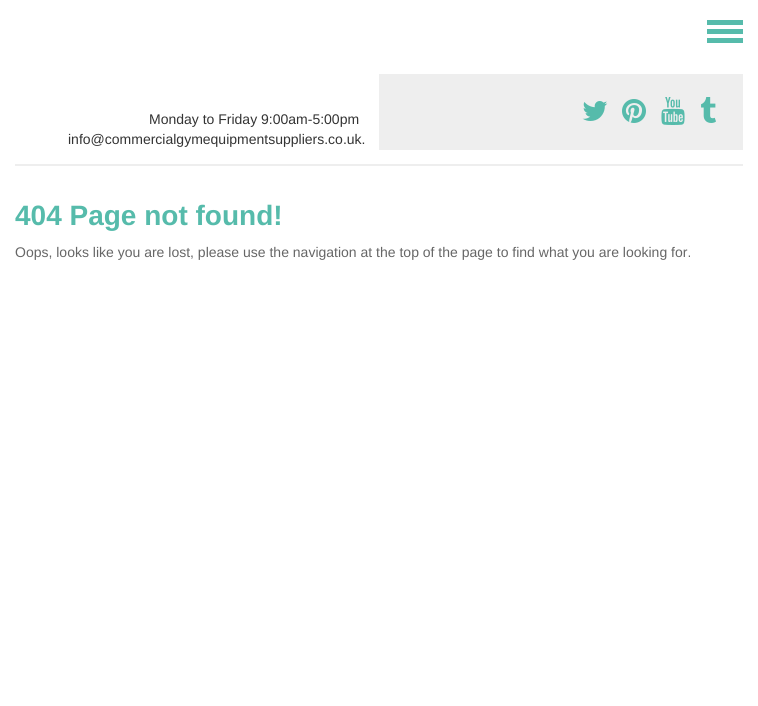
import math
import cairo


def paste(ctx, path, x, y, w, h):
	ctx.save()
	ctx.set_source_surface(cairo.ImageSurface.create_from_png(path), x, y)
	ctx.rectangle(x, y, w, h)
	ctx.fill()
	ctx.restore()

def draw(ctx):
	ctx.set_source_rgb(1, 1, 1)
	ctx.paint()
	ctx.set_source_rgb(0.933, 0.933, 0.933)
	ctx.rectangle(15, 164, 728, 2)
	ctx.fill()
	ctx.set_source_rgb(0.337, 0.733, 0.671)
	ctx.rectangle(707, 20, 36, 5)
	ctx.rectangle(707, 29, 36, 5)
	ctx.rectangle(707, 38, 36, 5)
	ctx.fill()
	ctx.select_font_face('Liberation Sans')
	ctx.set_font_size(14)
	ctx.set_source_rgb(0.2, 0.2, 0.2)
	ctx.move_to(149, 124)
	ctx.show_text('Monday to Friday 9:00am-5:00pm')
	ctx.move_to(68, 144)
	ctx.show_text('info@commercialgymequipmentsuppliers.co.uk.')
	ctx.set_source_rgb(0.933, 0.933, 0.933)
	ctx.rectangle(379, 74, 364, 76)
	ctx.fill()
	paste(ctx, 'media/1.png', 582, 101, 26, 20)
	paste(ctx, 'media/2.png', 622, 99, 24, 24)
	paste(ctx, 'media/3.png', 661, 97, 24, 28)
	paste(ctx, 'media/4.png', 701, 97, 15, 26)
	ctx.select_font_face('Liberation Sans', cairo.FONT_SLANT_NORMAL, cairo.FONT_WEIGHT_BOLD)
	ctx.set_font_size(28)
	ctx.set_source_rgb(0.337, 0.733, 0.671)
	ctx.move_to(15, 225)
	ctx.show_text('404 Page not found!')
	ctx.select_font_face('Liberation Sans')
	ctx.set_font_size(14)
	ctx.set_source_rgb(0.4, 0.4, 0.4)
	ctx.move_to(15, 257)
	ctx.show_text('Oops, looks like you are lost, please use the navigation at the top of the page to find what you are looking for.')


surface = cairo.ImageSurface(cairo.FORMAT_RGB24, 758, 706)
ctx = cairo.Context(surface)
options = cairo.FontOptions()
options.set_hint_metrics(cairo.HINT_METRICS_OFF)
options.set_hint_style(cairo.HINT_STYLE_NONE)
ctx.set_font_options(options)
ctx.set_miter_limit(4)
draw(ctx)
surface.write_to_png('image.png')
